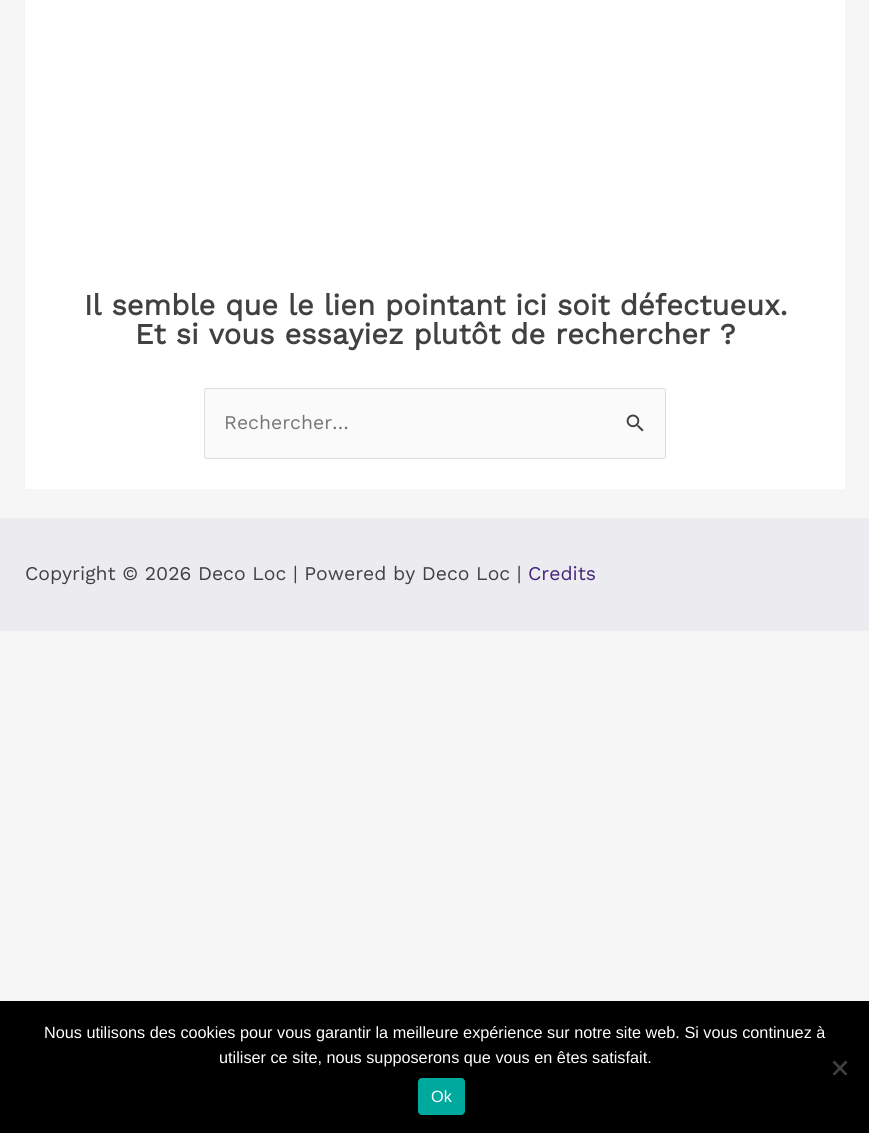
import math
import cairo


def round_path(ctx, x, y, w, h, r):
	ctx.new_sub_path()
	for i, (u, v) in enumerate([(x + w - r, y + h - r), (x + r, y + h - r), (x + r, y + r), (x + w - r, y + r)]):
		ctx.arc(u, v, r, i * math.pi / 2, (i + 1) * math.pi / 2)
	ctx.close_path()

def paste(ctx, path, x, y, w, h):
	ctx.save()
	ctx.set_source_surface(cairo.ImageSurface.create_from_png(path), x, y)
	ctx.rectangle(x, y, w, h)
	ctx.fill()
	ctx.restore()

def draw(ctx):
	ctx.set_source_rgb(0.961, 0.961, 0.961)
	ctx.paint()
	ctx.set_source_rgb(1, 1, 1)
	ctx.rectangle(25, 0, 820, 489)
	ctx.fill()
	ctx.select_font_face('Work Sans', cairo.FONT_SLANT_NORMAL, cairo.FONT_WEIGHT_BOLD)
	ctx.set_font_size(29.1)
	ctx.set_source_rgb(0.255, 0.251, 0.259)
	ctx.move_to(84, 315)
	ctx.show_text('Il semble que le lien pointant ici soit défectueux.')
	ctx.move_to(135, 344)
	ctx.show_text('Et si vous essayiez plutôt de rechercher ?')
	ctx.set_source_rgb(0.98, 0.98, 0.98)
	round_path(ctx, 204.5, 388.5, 461, 70, 2)
	ctx.fill_preserve()
	ctx.set_source_rgb(0.867, 0.867, 0.867)
	ctx.set_line_width(1)
	ctx.stroke()
	ctx.select_font_face('Work Sans')
	ctx.set_font_size(19.4)
	ctx.set_source_rgb(0.459, 0.459, 0.459)
	ctx.move_to(224, 429)
	ctx.show_text('Rechercher…')
	paste(ctx, 'media/1.png', 626, 414, 18, 18)
	ctx.set_source_rgb(0.925, 0.918, 0.937)
	ctx.rectangle(0, 518, 869, 113)
	ctx.fill()
	ctx.set_source_rgb(0.255, 0.251, 0.259)
	ctx.move_to(25, 580)
	ctx.show_text('Copyright © 2026 Deco Loc | Powered by Deco Loc |')
	ctx.set_source_rgb(0.275, 0.137, 0.478)
	ctx.move_to(528, 580)
	ctx.show_text('Credits')
	ctx.set_source_rgb(0, 0, 0)
	ctx.rectangle(0, 1001, 869, 132)
	ctx.fill()
	ctx.select_font_face('Liberation Sans')
	ctx.set_font_size(16.25)
	ctx.set_source_rgb(1, 1, 1)
	ctx.move_to(44, 1038)
	ctx.show_text('Nous utilisons des cookies pour vous garantir la meilleure expérience sur notre site web. Si vous continuez à')
	ctx.move_to(219, 1063)
	ctx.show_text('utiliser ce site, nous supposerons que vous en êtes satisfait.')
	ctx.set_source_rgb(0.251, 0.251, 0.251)
	ctx.new_path()
	ctx.move_to(845.5, 1060.5)
	ctx.line_to(847.5, 1062.5)
	ctx.line_to(834.5, 1075.5)
	ctx.line_to(832.5, 1074)
	ctx.close_path()
	ctx.fill()
	ctx.new_path()
	ctx.move_to(832.5, 1062.5)
	ctx.line_to(834.5, 1060.5)
	ctx.line_to(847.5, 1074)
	ctx.line_to(845.5, 1075.5)
	ctx.close_path()
	ctx.fill()
	ctx.set_source_rgb(0, 0.663, 0.616)
	round_path(ctx, 418, 1078, 47, 37, 4)
	ctx.fill()
	ctx.set_source_rgb(1, 1, 1)
	ctx.move_to(431, 1102)
	ctx.show_text('Ok')


surface = cairo.ImageSurface(cairo.FORMAT_RGB24, 869, 1133)
ctx = cairo.Context(surface)
options = cairo.FontOptions()
options.set_hint_metrics(cairo.HINT_METRICS_OFF)
options.set_hint_style(cairo.HINT_STYLE_NONE)
ctx.set_font_options(options)
ctx.set_miter_limit(4)
draw(ctx)
surface.write_to_png('image.png')
